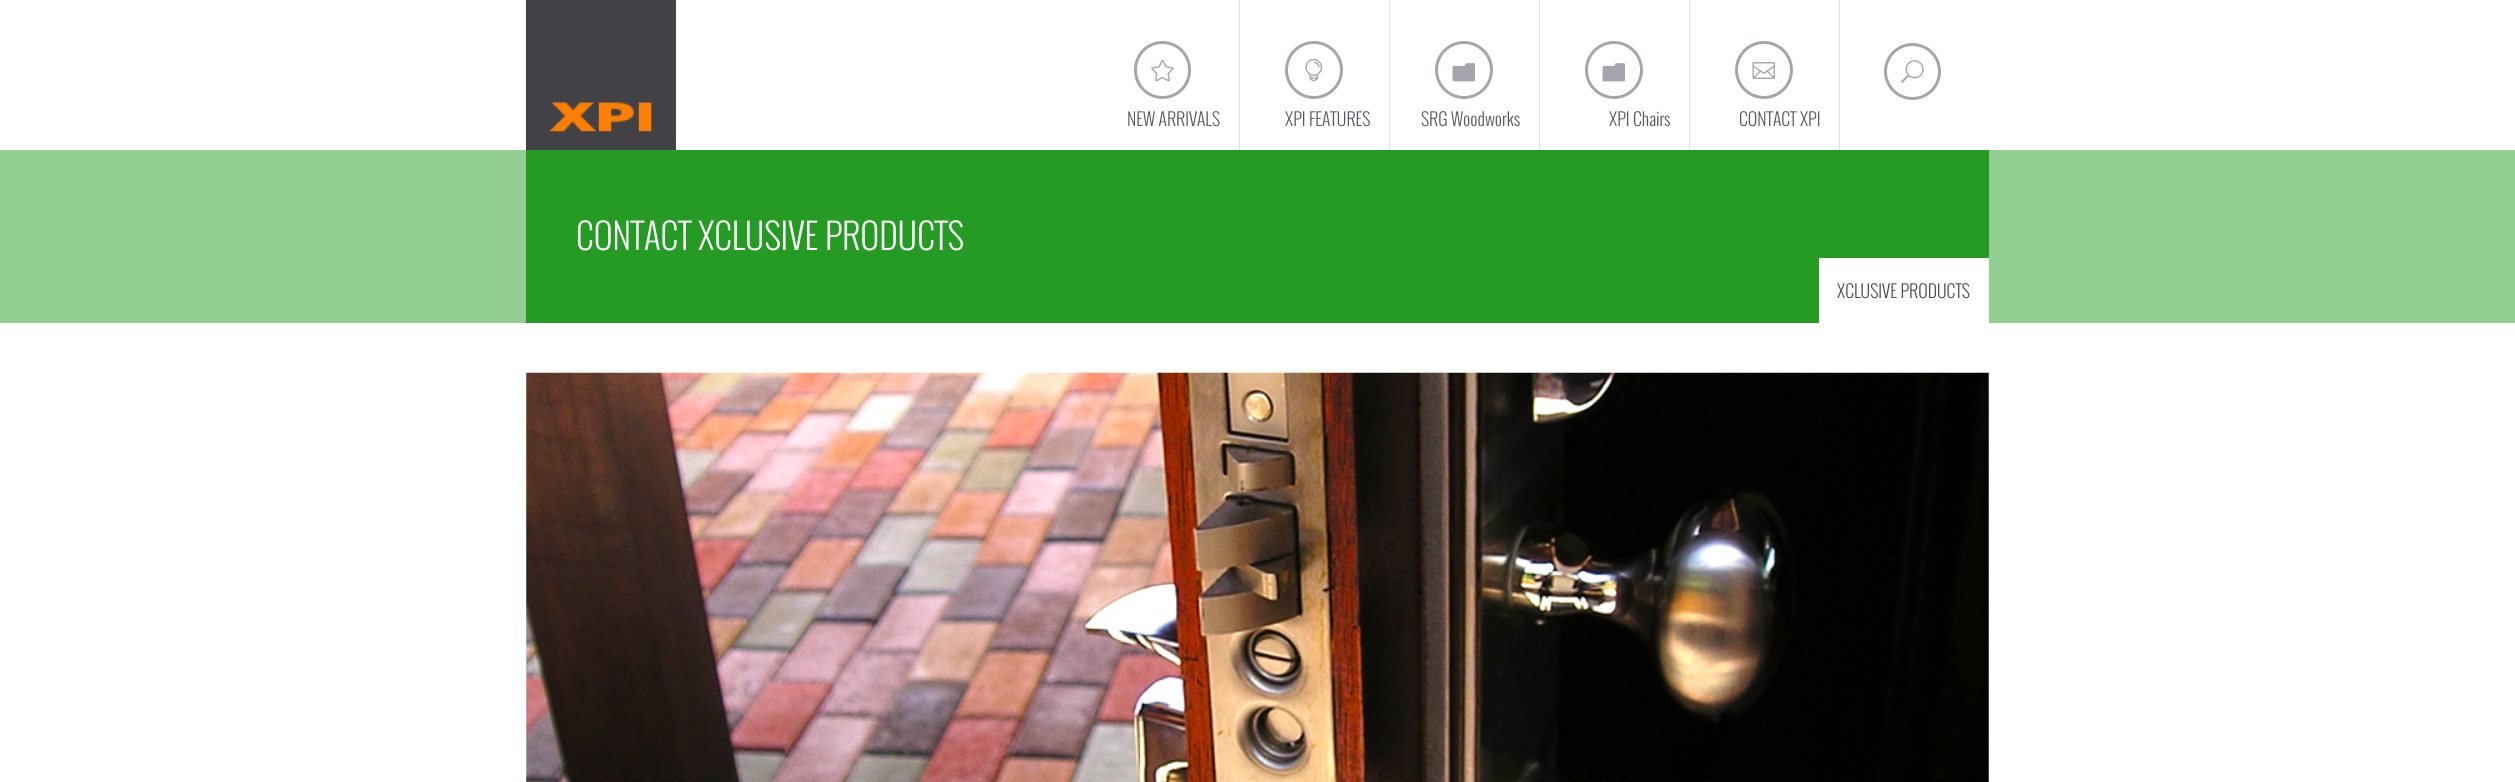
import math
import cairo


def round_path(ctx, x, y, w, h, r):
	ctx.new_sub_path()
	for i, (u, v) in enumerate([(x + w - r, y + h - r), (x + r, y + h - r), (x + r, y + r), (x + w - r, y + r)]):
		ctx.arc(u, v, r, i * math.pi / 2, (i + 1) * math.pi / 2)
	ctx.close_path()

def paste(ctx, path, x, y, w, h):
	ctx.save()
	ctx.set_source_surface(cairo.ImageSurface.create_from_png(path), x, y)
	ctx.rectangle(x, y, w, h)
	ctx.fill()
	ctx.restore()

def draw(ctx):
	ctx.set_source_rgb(1, 1, 1)
	ctx.paint()
	ctx.set_source_rgb(0.255, 0.255, 0.275)
	ctx.rectangle(526, 0, 150, 150)
	ctx.fill()
	paste(ctx, 'media/1.png', 548, 102, 104, 30)
	round_path(ctx, 1135.5, 42.5, 54, 55, 27)
	ctx.set_source_rgb(0.639, 0.655, 0.678)
	ctx.set_line_width(3)
	ctx.stroke()
	paste(ctx, 'media/2.png', 1151, 60, 23, 22)
	ctx.select_font_face('Oswald Light')
	ctx.set_font_size(17.5)
	ctx.set_source_rgb(0.337, 0.353, 0.376)
	ctx.move_to(1127, 126)
	ctx.show_text('NEW ARRIVALS')
	ctx.set_source_rgb(0.89, 0.89, 0.89)
	ctx.rectangle(1239, 0, 1, 150)
	ctx.fill()
	ctx.arc(1314, 70, 27.5, 0, 2 * math.pi)
	ctx.set_source_rgb(0.639, 0.655, 0.678)
	ctx.stroke()
	paste(ctx, 'media/3.png', 1305, 58, 18, 24)
	ctx.set_source_rgb(0.337, 0.353, 0.376)
	ctx.move_to(1285, 126)
	ctx.show_text('XPI FEATURES')
	ctx.set_source_rgb(0.89, 0.89, 0.89)
	ctx.rectangle(1389, 0, 1, 150)
	ctx.fill()
	ctx.arc(1464, 70, 27.5, 0, 2 * math.pi)
	ctx.set_source_rgb(0.639, 0.655, 0.678)
	ctx.stroke()
	paste(ctx, 'media/4.png', 1452, 63, 23, 19)
	ctx.set_source_rgb(0.337, 0.353, 0.376)
	ctx.move_to(1421, 126)
	ctx.show_text('SRG Woodworks')
	ctx.set_source_rgb(0.89, 0.89, 0.89)
	ctx.rectangle(1539, 0, 1, 150)
	ctx.fill()
	ctx.arc(1614, 70, 27.5, 0, 2 * math.pi)
	ctx.set_source_rgb(0.639, 0.655, 0.678)
	ctx.stroke()
	paste(ctx, 'media/4.png', 1602, 63, 23, 19)
	ctx.set_source_rgb(0.337, 0.353, 0.376)
	ctx.move_to(1609, 126)
	ctx.show_text('XPI Chairs')
	ctx.set_source_rgb(0.89, 0.89, 0.89)
	ctx.rectangle(1689, 0, 1, 150)
	ctx.fill()
	ctx.arc(1764, 70, 27.5, 0, 2 * math.pi)
	ctx.set_source_rgb(0.639, 0.655, 0.678)
	ctx.stroke()
	paste(ctx, 'media/5.png', 1752, 62, 23, 17)
	ctx.set_source_rgb(0.337, 0.353, 0.376)
	ctx.move_to(1739, 126)
	ctx.show_text('CONTACT XPI')
	ctx.set_source_rgb(0.89, 0.89, 0.89)
	ctx.rectangle(1839, 0, 1, 150)
	ctx.fill()
	ctx.arc(1912.5, 71.5, 27, 0, 2 * math.pi)
	ctx.set_source_rgb(0.639, 0.655, 0.678)
	ctx.stroke()
	paste(ctx, 'media/6.png', 1901, 60, 23, 23)
	ctx.set_source_rgb(0.573, 0.804, 0.573)
	ctx.rectangle(0, 150, 2515, 173)
	ctx.fill()
	ctx.set_source_rgb(0.145, 0.608, 0.141)
	ctx.rectangle(526, 150, 1463, 173)
	ctx.fill()
	ctx.set_font_size(35)
	ctx.set_source_rgb(1, 1, 1)
	ctx.move_to(576, 250)
	ctx.show_text('CONTACT XCLUSIVE PRODUCTS')
	ctx.rectangle(1819, 258, 170, 65)
	ctx.fill()
	ctx.set_font_size(17.5)
	ctx.set_source_rgb(0.294, 0.306, 0.325)
	ctx.move_to(1837, 298)
	ctx.show_text('XCLUSIVE PRODUCTS')
	paste(ctx, 'media/7.png', 526, 372, 1463, 410)


surface = cairo.ImageSurface(cairo.FORMAT_RGB24, 2515, 782)
ctx = cairo.Context(surface)
options = cairo.FontOptions()
options.set_hint_metrics(cairo.HINT_METRICS_OFF)
options.set_hint_style(cairo.HINT_STYLE_NONE)
ctx.set_font_options(options)
ctx.set_miter_limit(4)
draw(ctx)
surface.write_to_png('image.png')
